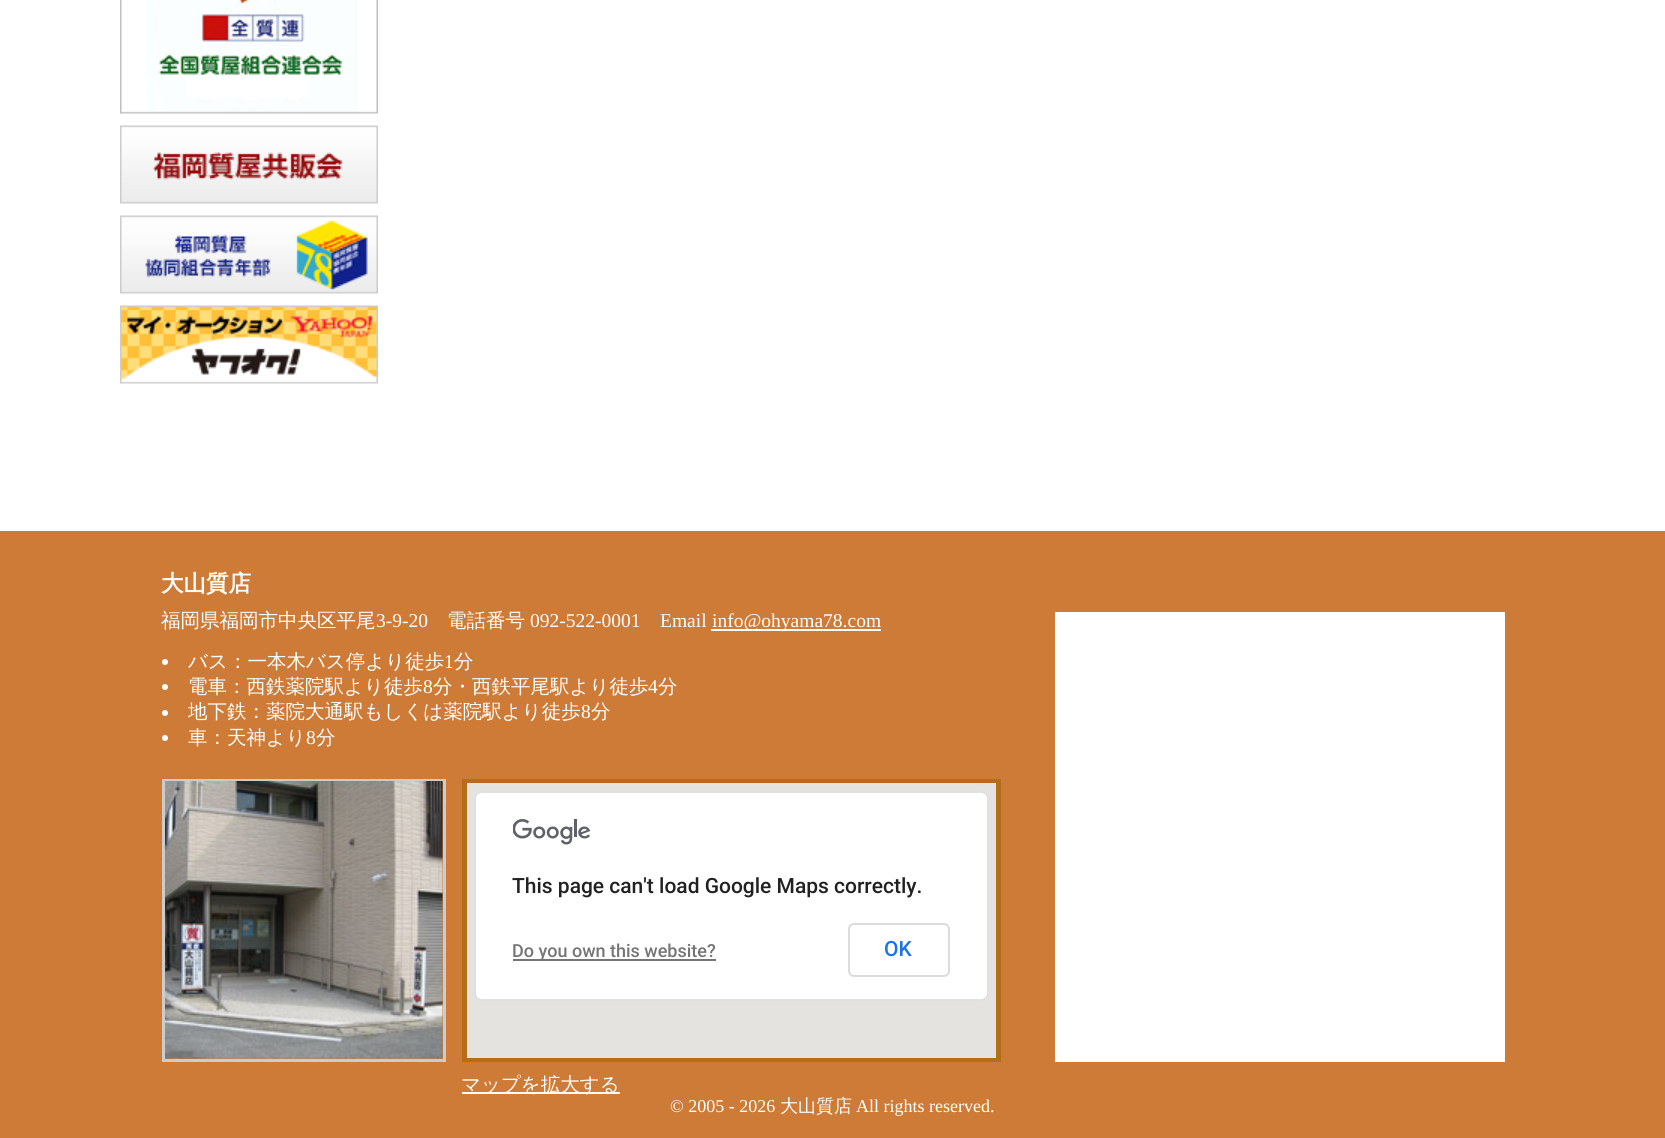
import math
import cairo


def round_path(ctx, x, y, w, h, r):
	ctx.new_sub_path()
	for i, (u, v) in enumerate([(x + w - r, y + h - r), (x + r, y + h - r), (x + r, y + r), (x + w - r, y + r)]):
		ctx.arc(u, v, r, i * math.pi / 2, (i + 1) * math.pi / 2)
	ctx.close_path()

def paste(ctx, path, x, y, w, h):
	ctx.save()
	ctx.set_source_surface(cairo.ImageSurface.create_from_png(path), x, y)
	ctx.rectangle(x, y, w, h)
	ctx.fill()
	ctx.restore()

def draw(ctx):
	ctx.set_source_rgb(1, 1, 1)
	ctx.paint()
	paste(ctx, 'media/1.png', 120, 0, 258, 114)
	paste(ctx, 'media/2.png', 120, 125, 258, 79)
	paste(ctx, 'media/3.png', 120, 215, 258, 79)
	paste(ctx, 'media/4.png', 120, 305, 258, 79)
	ctx.set_source_rgb(0.808, 0.482, 0.216)
	ctx.rectangle(0, 531, 1665, 607)
	ctx.fill()
	ctx.select_font_face('WenQuanYi Zen Hei', cairo.FONT_SLANT_NORMAL, cairo.FONT_WEIGHT_BOLD)
	ctx.set_font_size(22.5)
	ctx.set_source_rgb(1, 1, 1)
	ctx.move_to(161, 591)
	ctx.show_text('大山質店')
	ctx.select_font_face('WenQuanYi Zen Hei Medium')
	ctx.set_font_size(19.5)
	ctx.move_to(161, 627)
	ctx.show_text('福岡県福岡市中央区平尾')
	ctx.select_font_face('Liberation Serif')
	ctx.move_to(376, 627)
	ctx.show_text('3-9-20')
	ctx.select_font_face('WenQuanYi Zen Hei Medium')
	ctx.move_to(447, 627)
	ctx.show_text('電話番号')
	ctx.select_font_face('Liberation Serif')
	ctx.move_to(530, 627)
	ctx.show_text('092-522-0001')
	ctx.move_to(660, 627)
	ctx.show_text('Email')
	ctx.rectangle(711, 629, 170, 2)
	ctx.fill()
	ctx.move_to(712, 627)
	ctx.show_text('info@ohyama78.com')
	ctx.rectangle(1055, 612, 450, 450)
	ctx.fill()
	ctx.arc(165, 662, 3, 0, 2 * math.pi)
	ctx.fill()
	ctx.select_font_face('WenQuanYi Zen Hei Medium')
	ctx.move_to(188, 668)
	ctx.show_text('バス：一本木バス停より徒歩')
	ctx.select_font_face('Liberation Serif')
	ctx.move_to(444, 668)
	ctx.show_text('1')
	ctx.select_font_face('WenQuanYi Zen Hei Medium')
	ctx.move_to(454, 668)
	ctx.show_text('分')
	ctx.new_path()
	ctx.arc(165, 687, 3, 0, 2 * math.pi)
	ctx.fill()
	ctx.move_to(188, 693)
	ctx.show_text('電車：西鉄薬院駅より徒歩')
	ctx.select_font_face('Liberation Serif')
	ctx.move_to(423, 693)
	ctx.show_text('8')
	ctx.select_font_face('WenQuanYi Zen Hei Medium')
	ctx.move_to(433, 693)
	ctx.show_text('分・西鉄平尾駅より徒歩')
	ctx.select_font_face('Liberation Serif')
	ctx.move_to(648, 693)
	ctx.show_text('4')
	ctx.select_font_face('WenQuanYi Zen Hei Medium')
	ctx.move_to(658, 693)
	ctx.show_text('分')
	ctx.new_path()
	ctx.arc(165, 713, 3, 0, 2 * math.pi)
	ctx.fill()
	ctx.move_to(188, 718)
	ctx.show_text('地下鉄：薬院大通駅もしくは薬院駅より徒歩')
	ctx.select_font_face('Liberation Serif')
	ctx.move_to(581, 718)
	ctx.show_text('8')
	ctx.select_font_face('WenQuanYi Zen Hei Medium')
	ctx.move_to(591, 718)
	ctx.show_text('分')
	ctx.new_path()
	ctx.arc(165, 738, 3, 0, 2 * math.pi)
	ctx.fill()
	ctx.move_to(188, 744)
	ctx.show_text('車：天神より')
	ctx.select_font_face('Liberation Serif')
	ctx.move_to(306, 744)
	ctx.show_text('8')
	ctx.select_font_face('WenQuanYi Zen Hei Medium')
	ctx.move_to(316, 744)
	ctx.show_text('分')
	ctx.rectangle(163.5, 780.5, 281, 280)
	ctx.set_source_rgb(0.8, 0.8, 0.8)
	ctx.set_line_width(3)
	ctx.stroke()
	paste(ctx, 'media/5.png', 165, 781, 278, 278)
	ctx.rectangle(464.5, 781.5, 534, 278)
	ctx.set_source_rgb(0.702, 0.431, 0.098)
	ctx.set_line_width(5)
	ctx.stroke()
	ctx.set_source_rgb(0.898, 0.89, 0.875)
	ctx.rectangle(467, 783, 529, 275)
	ctx.fill()
	ctx.set_source_rgb(1, 1, 1)
	round_path(ctx, 474, 791, 515, 210, 8)
	ctx.fill()
	round_path(ctx, 475, 792, 513, 208, 7)
	ctx.set_source_rgba(0, 0, 0, 0.12)
	ctx.set_line_width(2)
	ctx.stroke()
	paste(ctx, 'media/6.png', 513, 819, 78, 26)
	ctx.select_font_face('Roboto Medium')
	ctx.set_font_size(21)
	ctx.set_source_rgb(0.129, 0.129, 0.129)
	ctx.move_to(512, 893)
	ctx.show_text('This page can\'t load Google Maps correctly.')
	ctx.set_source_rgb(0.459, 0.459, 0.459)
	ctx.rectangle(513, 959, 203, 2)
	ctx.fill()
	ctx.set_font_size(18)
	ctx.move_to(512, 957)
	ctx.show_text('Do you own this website?')
	round_path(ctx, 849, 924, 100, 52, 5)
	ctx.set_source_rgb(0.855, 0.863, 0.878)
	ctx.stroke()
	ctx.set_font_size(21)
	ctx.set_source_rgb(0.102, 0.451, 0.91)
	ctx.move_to(884, 956)
	ctx.show_text('OK')
	ctx.set_source_rgb(1, 1, 1)
	ctx.rectangle(462, 1092, 158, 2)
	ctx.fill()
	ctx.select_font_face('WenQuanYi Zen Hei Medium')
	ctx.set_font_size(19.5)
	ctx.move_to(461, 1091)
	ctx.show_text('マップを拡大する')
	ctx.select_font_face('Liberation Serif')
	ctx.set_font_size(18)
	ctx.move_to(670, 1112)
	ctx.show_text('© 2005 - 2026')
	ctx.select_font_face('WenQuanYi Zen Hei Medium')
	ctx.move_to(780, 1112)
	ctx.show_text('大山質店')
	ctx.select_font_face('Liberation Serif')
	ctx.move_to(856, 1112)
	ctx.show_text('All rights reserved.')


surface = cairo.ImageSurface(cairo.FORMAT_RGB24, 1665, 1138)
ctx = cairo.Context(surface)
options = cairo.FontOptions()
options.set_hint_metrics(cairo.HINT_METRICS_OFF)
options.set_hint_style(cairo.HINT_STYLE_NONE)
ctx.set_font_options(options)
ctx.set_miter_limit(4)
draw(ctx)
surface.write_to_png('image.png')
